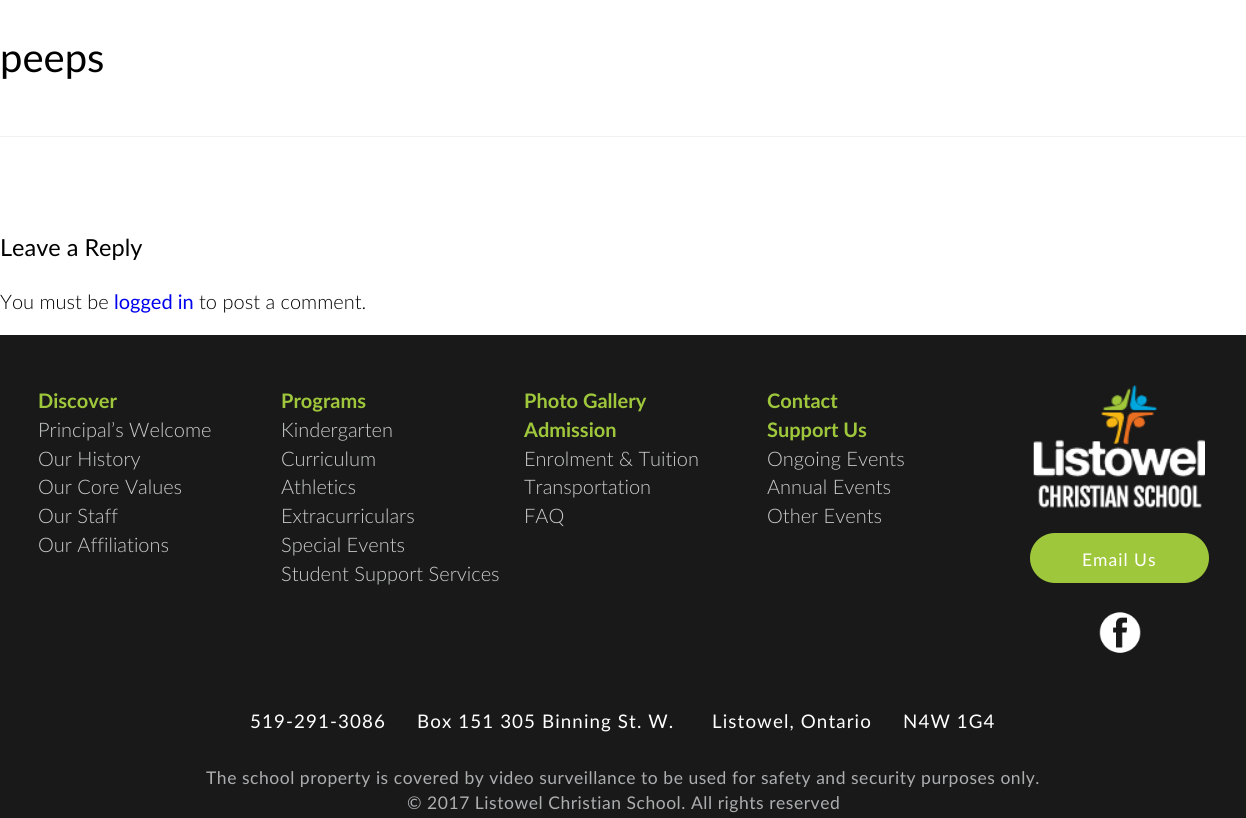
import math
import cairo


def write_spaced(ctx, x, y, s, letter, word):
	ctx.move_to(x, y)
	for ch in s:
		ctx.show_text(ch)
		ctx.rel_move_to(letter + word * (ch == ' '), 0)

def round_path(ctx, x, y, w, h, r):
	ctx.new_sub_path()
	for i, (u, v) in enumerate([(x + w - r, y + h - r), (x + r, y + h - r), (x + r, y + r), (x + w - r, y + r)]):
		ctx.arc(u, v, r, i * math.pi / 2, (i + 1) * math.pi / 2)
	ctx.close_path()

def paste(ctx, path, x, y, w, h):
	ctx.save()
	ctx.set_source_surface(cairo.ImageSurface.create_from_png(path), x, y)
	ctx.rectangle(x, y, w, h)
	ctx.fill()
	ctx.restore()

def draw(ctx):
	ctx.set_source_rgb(1, 1, 1)
	ctx.paint()
	ctx.set_source_rgb(0.945, 0.945, 0.945)
	ctx.rectangle(0, 136, 1246, 1)
	ctx.fill()
	ctx.select_font_face('Lato')
	ctx.set_font_size(40)
	ctx.set_source_rgb(0, 0, 0)
	ctx.move_to(0, 72)
	ctx.show_text('peeps')
	ctx.set_font_size(23.5)
	ctx.move_to(0, 256)
	ctx.show_text('Leave a Reply')
	ctx.select_font_face('Lato Light')
	ctx.set_font_size(20)
	ctx.move_to(0, 309)
	ctx.show_text('You must be')
	ctx.select_font_face('Lato')
	ctx.set_source_rgb(0, 0, 0.933)
	ctx.move_to(114, 309)
	ctx.show_text('logged in')
	ctx.select_font_face('Lato Light')
	ctx.set_source_rgb(0, 0, 0)
	ctx.move_to(199, 309)
	ctx.show_text('to post a comment.')
	ctx.set_source_rgb(0.098, 0.098, 0.098)
	ctx.rectangle(0, 335, 1246, 483)
	ctx.fill()
	ctx.select_font_face('Lato', cairo.FONT_SLANT_NORMAL, cairo.FONT_WEIGHT_BOLD)
	ctx.set_source_rgb(0.624, 0.78, 0.231)
	ctx.move_to(38, 408)
	ctx.show_text('Discover')
	ctx.select_font_face('Lato Light')
	ctx.set_source_rgb(0.796, 0.8, 0.8)
	for x, y, s in [
		(38, 437, 'Principal’s Welcome'),
		(38, 466, 'Our History'),
		(38, 494, 'Our Core Values'),
		(38, 523, 'Our Staff'),
		(38, 552, 'Our Affiliations'),
	]:
		ctx.move_to(x, y)
		ctx.show_text(s)
	ctx.select_font_face('Lato', cairo.FONT_SLANT_NORMAL, cairo.FONT_WEIGHT_BOLD)
	ctx.set_source_rgb(0.624, 0.78, 0.231)
	ctx.move_to(281, 408)
	ctx.show_text('Programs')
	ctx.select_font_face('Lato Light')
	ctx.set_source_rgb(0.796, 0.8, 0.8)
	for x, y, s in [
		(281, 437, 'Kindergarten'),
		(281, 466, 'Curriculum'),
		(281, 494, 'Athletics'),
		(281, 523, 'Extracurriculars'),
		(281, 552, 'Special Events'),
		(281, 581, 'Student Support Services'),
	]:
		ctx.move_to(x, y)
		ctx.show_text(s)
	ctx.select_font_face('Lato', cairo.FONT_SLANT_NORMAL, cairo.FONT_WEIGHT_BOLD)
	ctx.set_source_rgb(0.624, 0.78, 0.231)
	for x, y, s in [
		(524, 408, 'Photo Gallery'),
		(767, 408, 'Contact'),
		(524, 437, 'Admission'),
	]:
		ctx.move_to(x, y)
		ctx.show_text(s)
	ctx.select_font_face('Lato Light')
	ctx.set_source_rgb(0.796, 0.8, 0.8)
	for x, y, s in [
		(524, 466, 'Enrolment & Tuition'),
		(524, 494, 'Transportation'),
		(524, 523, 'FAQ'),
	]:
		ctx.move_to(x, y)
		ctx.show_text(s)
	ctx.select_font_face('Lato', cairo.FONT_SLANT_NORMAL, cairo.FONT_WEIGHT_BOLD)
	ctx.set_source_rgb(0.624, 0.78, 0.231)
	ctx.move_to(767, 437)
	ctx.show_text('Support Us')
	ctx.select_font_face('Lato Light')
	ctx.set_source_rgb(0.796, 0.8, 0.8)
	for x, y, s in [
		(767, 466, 'Ongoing Events'),
		(767, 494, 'Annual Events'),
		(767, 523, 'Other Events'),
	]:
		ctx.move_to(x, y)
		ctx.show_text(s)
	paste(ctx, 'media/1.png', 1033, 385, 172, 123)
	ctx.set_source_rgb(0.624, 0.78, 0.231)
	round_path(ctx, 1030, 533, 179, 50, 25)
	ctx.fill()
	ctx.select_font_face('Lato')
	ctx.set_font_size(17.5)
	ctx.set_source_rgb(1, 1, 1)
	write_spaced(ctx, 1082, 566, 'Email Us', 1, 0)
	paste(ctx, 'media/2.png', 1099, 612, 42, 41)
	ctx.set_font_size(18.75)
	for x, y, s in [
		(250, 728, '519-291-3086'),
		(417, 728, 'Box 151 305 Binning St. W.'),
		(712, 728, 'Listowel, Ontario'),
		(903, 728, 'N4W 1G4'),
	]:
		write_spaced(ctx, x, y, s, 1.1, 0)
	ctx.set_font_size(17.5)
	ctx.set_source_rgb(0.675, 0.678, 0.686)
	write_spaced(ctx, 206, 784, 'The school property is covered by video surveillance to be used for safety and security purposes only.', 0.53, 0)
	write_spaced(ctx, 407, 809, '© 2017 Listowel Christian School. All rights reserved', 0.53, 0)


surface = cairo.ImageSurface(cairo.FORMAT_RGB24, 1246, 818)
ctx = cairo.Context(surface)
options = cairo.FontOptions()
options.set_hint_metrics(cairo.HINT_METRICS_OFF)
options.set_hint_style(cairo.HINT_STYLE_NONE)
ctx.set_font_options(options)
ctx.set_miter_limit(4)
draw(ctx)
surface.write_to_png('image.png')
